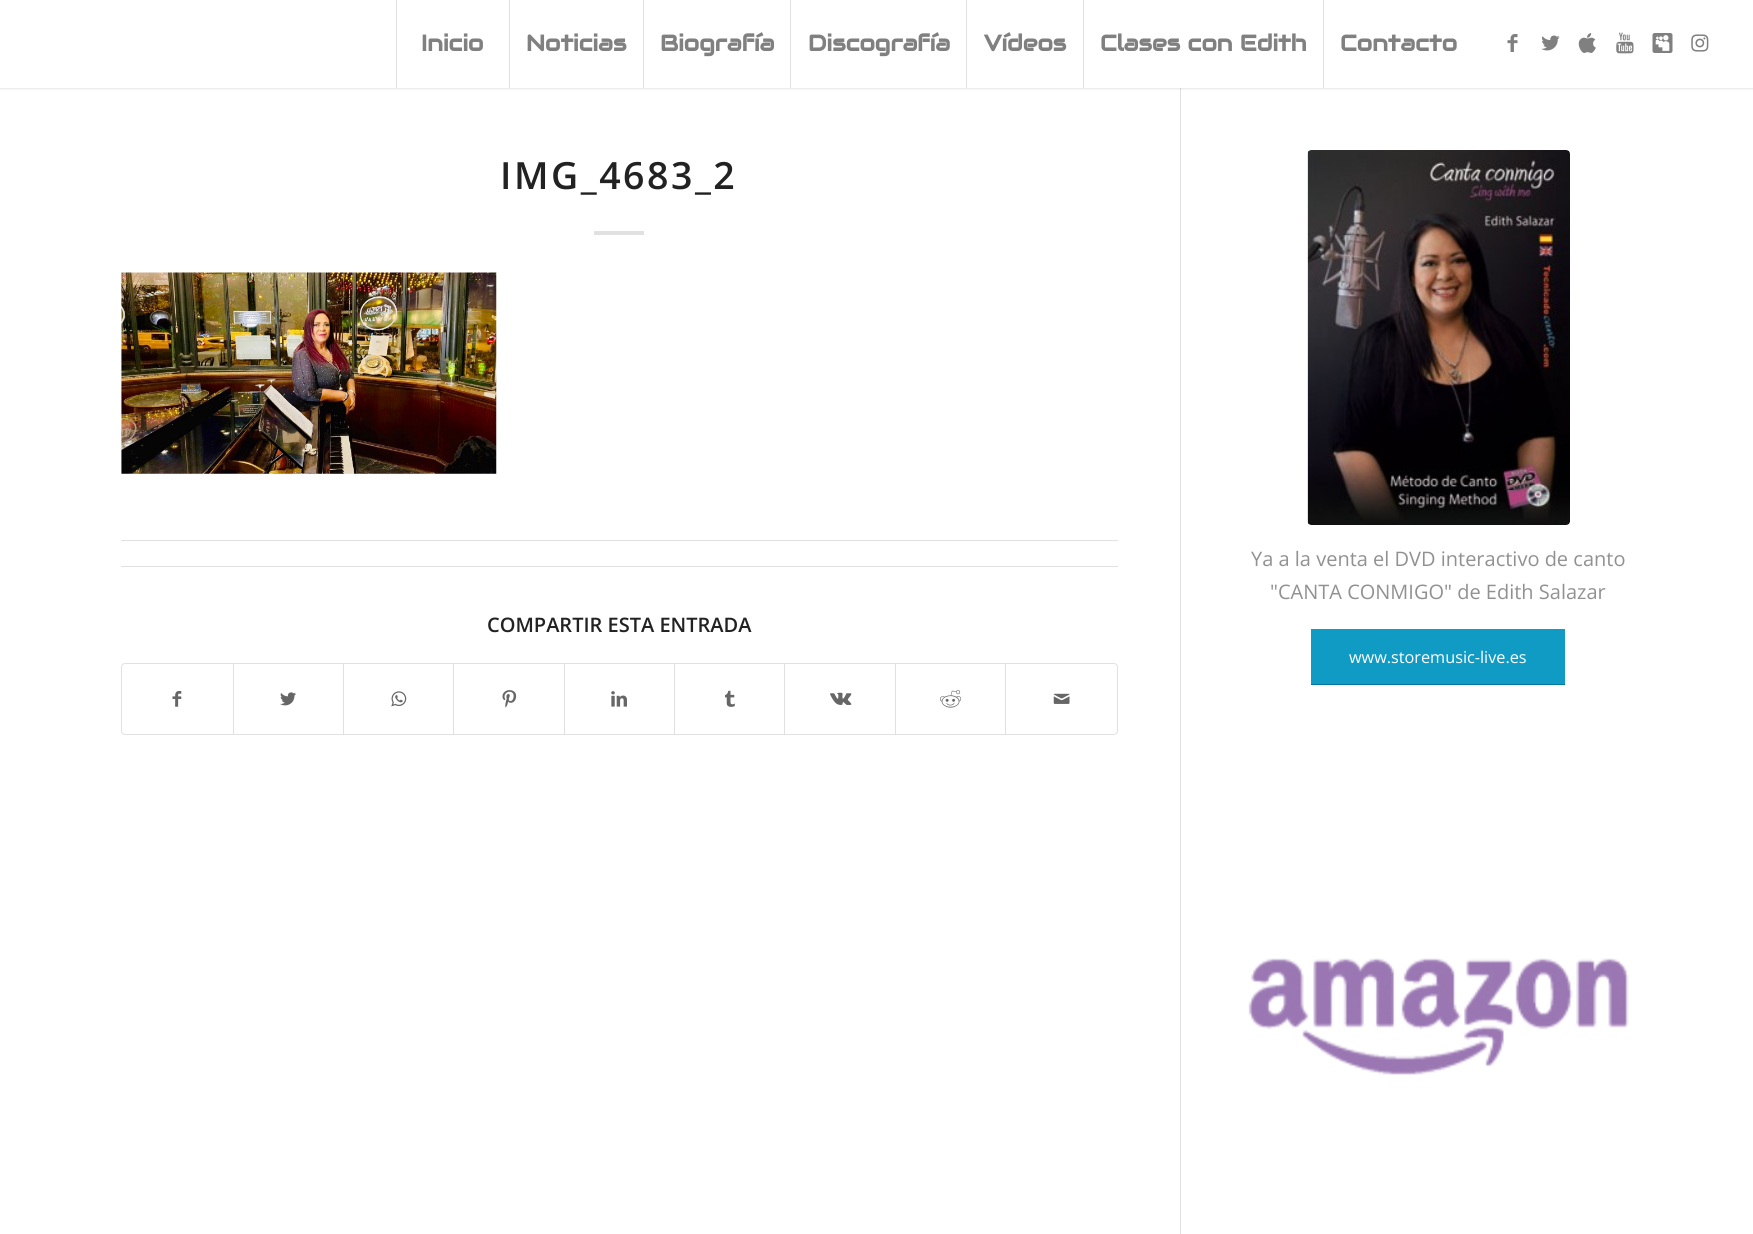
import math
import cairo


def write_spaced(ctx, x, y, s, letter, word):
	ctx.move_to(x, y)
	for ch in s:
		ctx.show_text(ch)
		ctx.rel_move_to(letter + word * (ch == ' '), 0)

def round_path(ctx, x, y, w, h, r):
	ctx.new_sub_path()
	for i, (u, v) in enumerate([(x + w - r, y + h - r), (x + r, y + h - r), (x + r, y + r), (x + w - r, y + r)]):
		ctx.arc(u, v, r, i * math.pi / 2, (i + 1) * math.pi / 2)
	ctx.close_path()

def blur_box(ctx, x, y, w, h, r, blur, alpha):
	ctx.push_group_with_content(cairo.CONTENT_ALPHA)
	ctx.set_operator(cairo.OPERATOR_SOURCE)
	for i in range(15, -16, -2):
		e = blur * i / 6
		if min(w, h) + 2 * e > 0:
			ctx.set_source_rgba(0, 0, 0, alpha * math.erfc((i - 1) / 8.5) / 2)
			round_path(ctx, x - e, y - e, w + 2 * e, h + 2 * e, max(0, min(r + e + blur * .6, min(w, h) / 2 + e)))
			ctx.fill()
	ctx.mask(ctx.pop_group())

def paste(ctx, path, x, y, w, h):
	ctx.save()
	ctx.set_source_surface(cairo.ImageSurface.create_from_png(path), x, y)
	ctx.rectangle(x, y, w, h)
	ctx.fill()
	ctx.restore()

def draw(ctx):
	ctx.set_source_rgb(1, 1, 1)
	ctx.paint()
	ctx.set_source_rgb(0.882, 0.882, 0.882)
	ctx.rectangle(1180, 88, 1, 1146)
	ctx.fill()
	ctx.set_source_rgb(0, 0, 0)
	blur_box(ctx, -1, -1, 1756, 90, 0, 1, 0.1)
	ctx.set_source_rgb(1, 1, 1)
	ctx.rectangle(0, 0, 1753, 88)
	ctx.fill()
	ctx.set_source_rgb(0.882, 0.882, 0.882)
	ctx.rectangle(396, 0, 1, 88)
	ctx.fill()
	ctx.select_font_face('Audiowide', cairo.FONT_SLANT_NORMAL, cairo.FONT_WEIGHT_BOLD)
	ctx.set_font_size(22.5)
	ctx.set_source_rgb(0.502, 0.502, 0.502)
	ctx.move_to(421, 51)
	ctx.show_text('Inicio')
	ctx.set_source_rgb(0.882, 0.882, 0.882)
	ctx.rectangle(509, 0, 1, 88)
	ctx.fill()
	ctx.set_source_rgb(0.502, 0.502, 0.502)
	ctx.move_to(526, 51)
	ctx.show_text('Noticias')
	ctx.set_source_rgb(0.882, 0.882, 0.882)
	ctx.rectangle(643, 0, 1, 88)
	ctx.fill()
	ctx.set_source_rgb(0.502, 0.502, 0.502)
	ctx.move_to(660, 51)
	ctx.show_text('Biografía')
	ctx.set_source_rgb(0.882, 0.882, 0.882)
	ctx.rectangle(790, 0, 1, 88)
	ctx.fill()
	ctx.set_source_rgb(0.502, 0.502, 0.502)
	ctx.move_to(808, 51)
	ctx.show_text('Discografía')
	ctx.set_source_rgb(0.882, 0.882, 0.882)
	ctx.rectangle(966, 0, 1, 88)
	ctx.fill()
	ctx.set_source_rgb(0.502, 0.502, 0.502)
	ctx.move_to(984, 51)
	ctx.show_text('Vídeos')
	ctx.set_source_rgb(0.882, 0.882, 0.882)
	ctx.rectangle(1083, 0, 1, 88)
	ctx.fill()
	ctx.set_source_rgb(0.502, 0.502, 0.502)
	ctx.move_to(1100, 51)
	ctx.show_text('Clases con Edith')
	ctx.set_source_rgb(0.882, 0.882, 0.882)
	ctx.rectangle(1323, 0, 1, 88)
	ctx.fill()
	ctx.set_source_rgb(0.502, 0.502, 0.502)
	ctx.move_to(1340, 51)
	ctx.show_text('Contacto')
	paste(ctx, 'media/1.png', 1507, 34, 11, 18)
	paste(ctx, 'media/2.png', 1541, 35, 19, 16)
	paste(ctx, 'media/3.png', 1578, 33, 18, 20)
	paste(ctx, 'media/4.png', 1616, 32, 18, 22)
	paste(ctx, 'media/5.png', 1652, 33, 21, 20)
	paste(ctx, 'media/6.png', 1691, 34, 18, 18)
	ctx.select_font_face('Open Sans SemiBold')
	ctx.set_font_size(37.5)
	ctx.set_source_rgb(0.133, 0.133, 0.133)
	write_spaced(ctx, 500, 189, 'IMG_4683_2', 2.5, 0)
	ctx.set_source_rgb(0.882, 0.882, 0.882)
	ctx.rectangle(594, 231, 50, 4)
	ctx.fill()
	paste(ctx, 'media/7.png', 121, 272, 376, 202)
	ctx.rectangle(121, 540, 997, 1)
	ctx.fill()
	ctx.rectangle(121, 566, 997, 1)
	ctx.fill()
	ctx.set_font_size(20)
	ctx.set_source_rgb(0.133, 0.133, 0.133)
	ctx.move_to(487, 632)
	ctx.show_text('COMPARTIR ESTA ENTRADA')
	round_path(ctx, 121.5, 663.5, 996, 71, 3.5)
	ctx.set_source_rgb(0.882, 0.882, 0.882)
	ctx.set_line_width(1)
	ctx.stroke()
	paste(ctx, 'media/8.png', 172, 691, 10, 16)
	ctx.rectangle(233, 664, 1, 70)
	ctx.fill()
	paste(ctx, 'media/9.png', 280, 692, 16, 14)
	ctx.rectangle(343, 664, 1, 70)
	ctx.fill()
	paste(ctx, 'media/10.png', 391, 691, 16, 16)
	ctx.rectangle(453, 664, 1, 70)
	ctx.fill()
	paste(ctx, 'media/11.png', 502, 690, 15, 18)
	ctx.rectangle(564, 664, 1, 70)
	ctx.fill()
	paste(ctx, 'media/12.png', 611, 691, 16, 16)
	ctx.rectangle(674, 664, 1, 70)
	ctx.fill()
	paste(ctx, 'media/13.png', 725, 690, 10, 17)
	ctx.rectangle(784, 664, 1, 70)
	ctx.fill()
	paste(ctx, 'media/14.png', 830, 692, 22, 13)
	ctx.rectangle(895, 664, 1, 70)
	ctx.fill()
	paste(ctx, 'media/15.png', 940, 690, 22, 18)
	ctx.rectangle(1005, 664, 1, 70)
	ctx.fill()
	paste(ctx, 'media/16.png', 1053, 693, 17, 11)
	paste(ctx, 'media/17.png', 1307, 150, 263, 375)
	ctx.select_font_face('Open Sans')
	ctx.set_source_rgb(0.569, 0.569, 0.569)
	ctx.move_to(1251, 566)
	ctx.show_text('Ya a la venta el DVD interactivo de canto')
	ctx.move_to(1270, 599)
	ctx.show_text('"CANTA CONMIGO" de Edith Salazar')
	ctx.set_source_rgb(0.063, 0.608, 0.773)
	ctx.rectangle(1311, 629, 254, 55)
	ctx.fill()
	ctx.set_source_rgb(0, 0.475, 0.639)
	ctx.rectangle(1311, 684, 254, 1)
	ctx.fill()
	ctx.set_font_size(16.25)
	ctx.set_source_rgb(1, 1, 1)
	ctx.move_to(1349, 663)
	ctx.show_text('www.storemusic-live.es')
	paste(ctx, 'media/18.png', 1248, 958, 381, 117)


surface = cairo.ImageSurface(cairo.FORMAT_RGB24, 1753, 1234)
ctx = cairo.Context(surface)
options = cairo.FontOptions()
options.set_hint_metrics(cairo.HINT_METRICS_OFF)
options.set_hint_style(cairo.HINT_STYLE_NONE)
ctx.set_font_options(options)
ctx.set_miter_limit(4)
draw(ctx)
surface.write_to_png('image.png')
